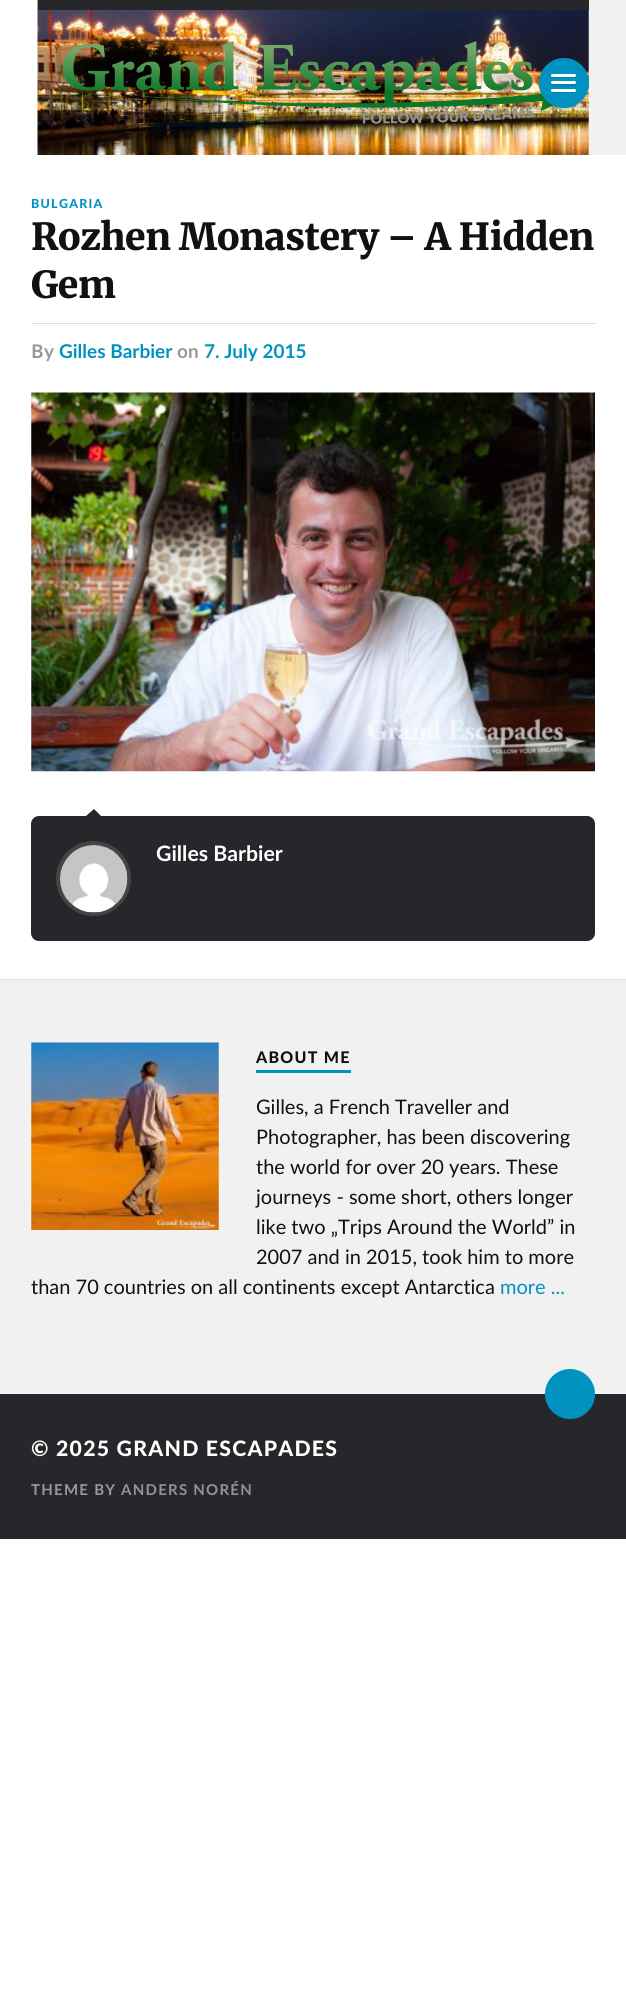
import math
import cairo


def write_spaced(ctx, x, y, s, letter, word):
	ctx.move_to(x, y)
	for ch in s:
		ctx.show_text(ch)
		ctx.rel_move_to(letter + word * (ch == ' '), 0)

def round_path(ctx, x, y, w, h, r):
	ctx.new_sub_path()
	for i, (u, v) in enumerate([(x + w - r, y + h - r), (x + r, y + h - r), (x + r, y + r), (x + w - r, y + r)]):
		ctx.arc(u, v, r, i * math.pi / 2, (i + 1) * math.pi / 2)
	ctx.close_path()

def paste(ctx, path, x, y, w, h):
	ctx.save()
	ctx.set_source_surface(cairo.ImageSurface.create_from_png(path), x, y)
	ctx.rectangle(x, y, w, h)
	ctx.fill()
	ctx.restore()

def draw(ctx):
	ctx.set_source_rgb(1, 1, 1)
	ctx.paint()
	ctx.set_source_rgb(0.945, 0.945, 0.945)
	ctx.rectangle(588, 0, 38, 155)
	ctx.fill()
	paste(ctx, 'media/1.png', 37, 0, 552, 155)
	ctx.set_source_rgb(0.149, 0.153, 0.169)
	ctx.rectangle(38, 0, 551, 10)
	ctx.fill()
	paste(ctx, 'media/2.png', 62, 41, 527, 83)
	ctx.set_source_rgba(0, 0, 0, 0.1)
	ctx.new_path()
	ctx.move_to(539, 86)
	ctx.curve_to(539, 91, 541, 96, 544, 100)
	ctx.curve_to(559, 121, 593, 107, 589, 81)
	ctx.curve_to(590, 113, 544, 117, 539, 86)
	ctx.close_path()
	ctx.fill()
	ctx.set_source_rgb(0, 0.576, 0.761)
	ctx.arc(564, 83, 25, 0, 2 * math.pi)
	ctx.fill()
	ctx.set_source_rgb(0, 0.518, 0.686)
	ctx.new_path()
	ctx.move_to(551.5, 75.5)
	ctx.line_to(551, 77)
	ctx.curve_to(551.5, 79, 555.5, 78, 556, 78)
	ctx.line_to(571, 78)
	ctx.curve_to(571.5, 78, 577, 78.5, 576, 76)
	ctx.line_to(575, 76)
	ctx.line_to(552, 76)
	ctx.close_path()
	ctx.fill()
	ctx.set_source_rgb(1, 1, 1)
	round_path(ctx, 551, 74, 25, 3, 1.5)
	ctx.fill()
	ctx.set_source_rgb(0, 0.518, 0.686)
	ctx.new_path()
	ctx.move_to(551.5, 83.5)
	ctx.curve_to(550.5, 84, 551, 86, 552.5, 86)
	ctx.line_to(571, 86)
	ctx.curve_to(571.5, 86, 575.5, 87, 576, 85)
	ctx.line_to(575.5, 83.5)
	ctx.line_to(552.5, 83.5)
	ctx.close_path()
	ctx.fill()
	ctx.set_source_rgb(1, 1, 1)
	round_path(ctx, 551, 81, 25, 3, 1.5)
	ctx.fill()
	ctx.set_source_rgb(0, 0.518, 0.686)
	ctx.new_path()
	ctx.move_to(551.5, 90.5)
	ctx.line_to(551, 92)
	ctx.curve_to(551.5, 94, 555.5, 93, 556, 93)
	ctx.line_to(571, 93)
	ctx.curve_to(571.5, 93, 577, 93.5, 576, 91)
	ctx.line_to(575, 91)
	ctx.line_to(552, 91)
	ctx.close_path()
	ctx.fill()
	ctx.set_source_rgb(1, 1, 1)
	round_path(ctx, 551, 89, 25, 3, 1.5)
	ctx.fill()
	ctx.select_font_face('Lato Black')
	ctx.set_font_size(12.5)
	ctx.set_source_rgb(0, 0.576, 0.761)
	write_spaced(ctx, 31, 208, 'BULGARIA', 1.25, 0)
	ctx.select_font_face('Merriweather Black')
	ctx.set_font_size(37.25)
	ctx.set_source_rgb(0.067, 0.067, 0.067)
	write_spaced(ctx, 31, 250, 'Rozhen Monastery – A Hidden', -0.4, 0)
	write_spaced(ctx, 31, 298, 'Gem', -0.4, 0)
	ctx.set_source_rgb(0.867, 0.867, 0.867)
	ctx.rectangle(31, 323, 564, 1)
	ctx.fill()
	ctx.select_font_face('Noto Sans SemiBold')
	ctx.set_font_size(19)
	ctx.set_source_rgb(0.6, 0.6, 0.6)
	ctx.move_to(31, 358)
	ctx.show_text('B')
	ctx.select_font_face('Lato', cairo.FONT_SLANT_NORMAL, cairo.FONT_WEIGHT_BOLD)
	ctx.move_to(44, 358)
	ctx.show_text('y')
	ctx.set_source_rgb(0, 0.576, 0.761)
	ctx.move_to(59, 358)
	ctx.show_text('Gilles Barbier')
	ctx.set_source_rgb(0.6, 0.6, 0.6)
	ctx.move_to(177, 358)
	ctx.show_text('on')
	ctx.set_source_rgb(0, 0.576, 0.761)
	ctx.move_to(204, 358)
	ctx.show_text('7. July 2015')
	paste(ctx, 'media/3.png', 31, 392, 564, 380)
	ctx.set_source_rgb(0.149, 0.153, 0.169)
	round_path(ctx, 31, 816, 564, 125, 8)
	ctx.fill()
	ctx.set_source_rgb(0.145, 0.149, 0.169)
	ctx.new_path()
	ctx.move_to(101, 816)
	ctx.line_to(86, 816)
	ctx.line_to(94, 809)
	ctx.close_path()
	ctx.fill()
	ctx.set_source_rgb(0.267, 0.267, 0.267)
	ctx.arc(93.5, 878.5, 37.5, 0, 2 * math.pi)
	ctx.fill()
	paste(ctx, 'media/4.png', 60, 845, 68, 68)
	ctx.set_font_size(21.25)
	ctx.set_source_rgb(1, 1, 1)
	ctx.move_to(156, 861)
	ctx.show_text('Gilles Barbier')
	ctx.set_source_rgb(0.945, 0.945, 0.945)
	ctx.rectangle(0, 980, 626, 414)
	ctx.fill()
	ctx.set_source_rgb(0.867, 0.867, 0.867)
	ctx.rectangle(0, 979, 626, 1)
	ctx.fill()
	paste(ctx, 'media/5.png', 31, 1042, 188, 188)
	ctx.set_source_rgb(0, 0.576, 0.761)
	ctx.rectangle(256, 1070, 95, 3)
	ctx.fill()
	ctx.select_font_face('Lato Black')
	ctx.set_font_size(16)
	ctx.set_source_rgb(0.067, 0.067, 0.067)
	write_spaced(ctx, 256, 1063, 'ABOUT ME', 1.25, 0)
	ctx.select_font_face('Lato')
	ctx.set_font_size(20)
	for x, y, s in [
		(256, 1114, 'Gilles, a French Traveller and'),
		(256, 1144, 'Photographer, has been discovering'),
		(256, 1174, 'the world for over 20 years. These'),
		(256, 1204, 'journeys - some short, others longer'),
		(256, 1234, 'like two „Trips Around the World” in'),
		(256, 1264, '2007 and in 2015, took him to more'),
		(31, 1294, 'than 70 countries on all continents except Antarctica'),
	]:
		ctx.move_to(x, y)
		ctx.show_text(s)
	ctx.set_source_rgb(0, 0.576, 0.761)
	ctx.move_to(500, 1294)
	ctx.show_text('more ...')
	ctx.set_source_rgb(0.149, 0.153, 0.169)
	ctx.rectangle(0, 1394, 626, 145)
	ctx.fill()
	ctx.set_source_rgb(0, 0.576, 0.761)
	ctx.arc(570, 1394, 25, 0, 2 * math.pi)
	ctx.fill()
	ctx.select_font_face('Lato Black')
	ctx.set_font_size(21.25)
	ctx.set_source_rgb(1, 1, 1)
	write_spaced(ctx, 31, 1456, '© 2025 GRAND ESCAPADES', 1.25, 0)
	ctx.select_font_face('Lato', cairo.FONT_SLANT_NORMAL, cairo.FONT_WEIGHT_BOLD)
	ctx.set_font_size(15)
	ctx.set_source_rgb(0.6, 0.6, 0.6)
	write_spaced(ctx, 31, 1495, 'THEME BY', 1.25, 0)
	ctx.set_source_rgb(0.576, 0.576, 0.584)
	write_spaced(ctx, 121, 1495, 'ANDERS NORÉN', 1.25, 0)


surface = cairo.ImageSurface(cairo.FORMAT_RGB24, 626, 2000)
ctx = cairo.Context(surface)
options = cairo.FontOptions()
options.set_hint_metrics(cairo.HINT_METRICS_OFF)
options.set_hint_style(cairo.HINT_STYLE_NONE)
ctx.set_font_options(options)
ctx.set_miter_limit(4)
draw(ctx)
surface.write_to_png('image.png')
